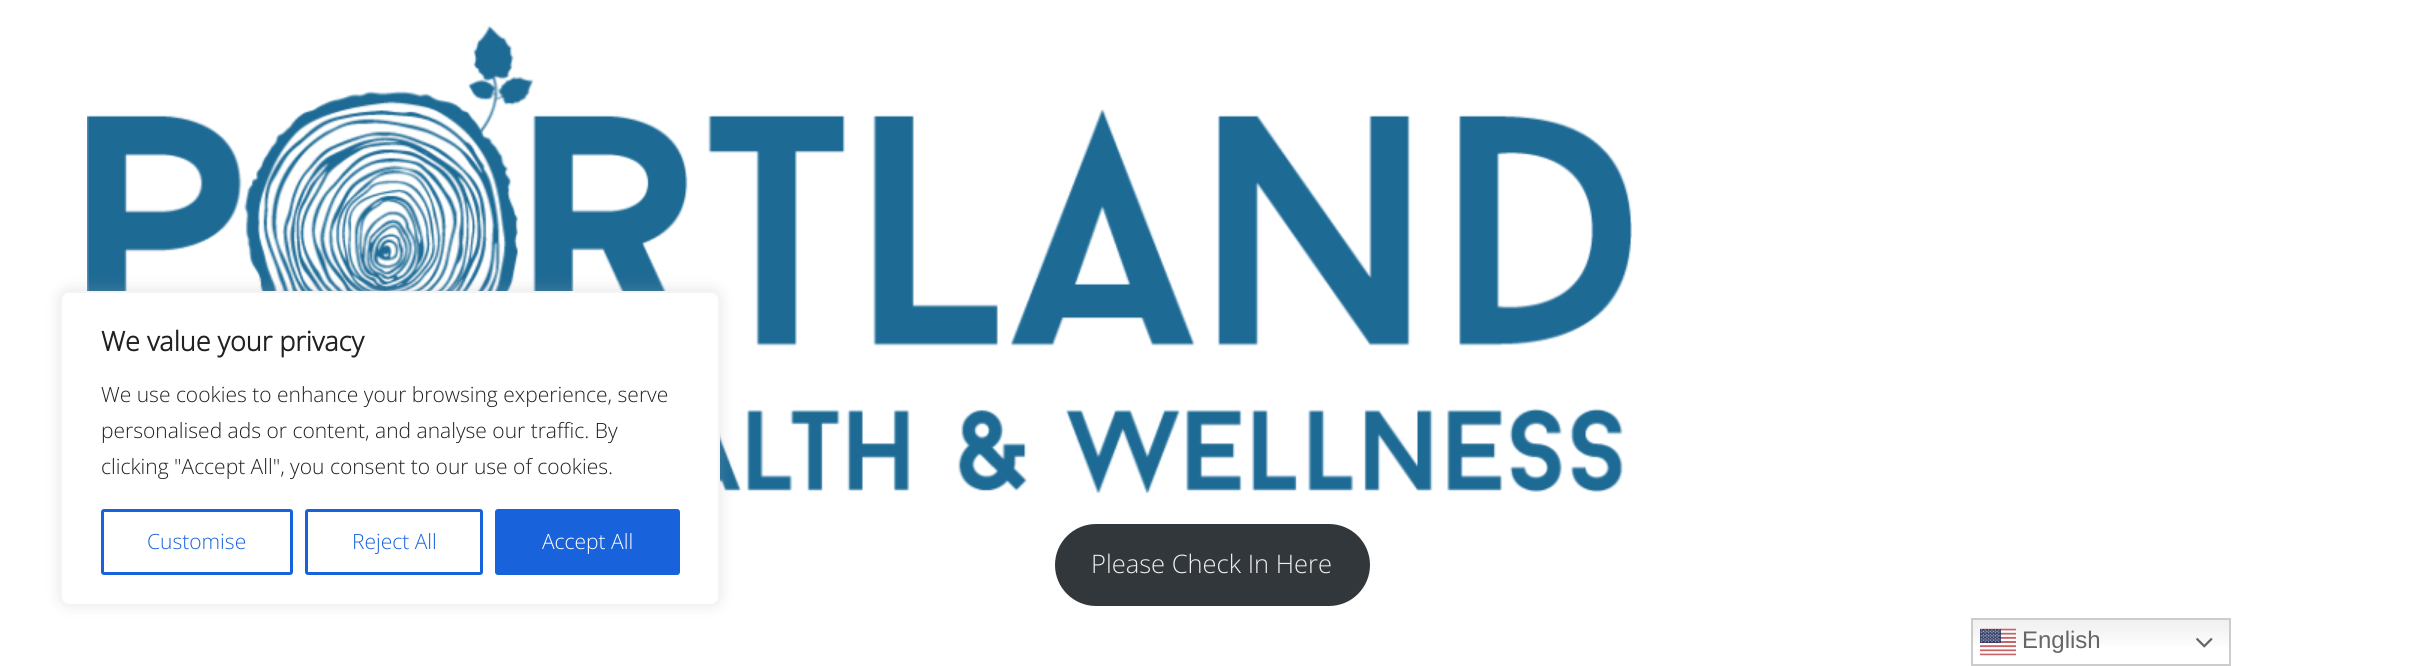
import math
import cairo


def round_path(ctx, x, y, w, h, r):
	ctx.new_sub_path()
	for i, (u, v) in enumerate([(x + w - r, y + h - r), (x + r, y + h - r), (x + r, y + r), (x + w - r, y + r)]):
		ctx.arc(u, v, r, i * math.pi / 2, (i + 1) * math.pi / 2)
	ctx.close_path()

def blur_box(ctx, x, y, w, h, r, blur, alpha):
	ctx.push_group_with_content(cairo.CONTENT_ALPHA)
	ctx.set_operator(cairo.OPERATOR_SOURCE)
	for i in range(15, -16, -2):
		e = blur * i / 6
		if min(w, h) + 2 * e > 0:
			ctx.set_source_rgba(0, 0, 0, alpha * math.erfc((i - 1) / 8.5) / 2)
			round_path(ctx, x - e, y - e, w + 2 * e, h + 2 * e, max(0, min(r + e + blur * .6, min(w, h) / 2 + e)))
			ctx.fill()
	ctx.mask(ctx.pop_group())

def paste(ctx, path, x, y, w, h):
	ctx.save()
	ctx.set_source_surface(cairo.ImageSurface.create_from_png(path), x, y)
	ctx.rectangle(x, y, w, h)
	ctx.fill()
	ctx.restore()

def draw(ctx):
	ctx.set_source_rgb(1, 1, 1)
	ctx.paint()
	paste(ctx, 'media/1.png', 87, 26, 1545, 467)
	ctx.set_source_rgb(0.675, 0.671, 0.671)
	blur_box(ctx, 60, 290, 660, 315, 9, 7.5, 0.3)
	ctx.set_source_rgb(1, 1, 1)
	round_path(ctx, 61, 292, 658, 313, 8)
	ctx.fill_preserve()
	ctx.set_source_rgb(0.957, 0.957, 0.957)
	ctx.stroke()
	ctx.select_font_face('Open Sans', cairo.FONT_SLANT_NORMAL, cairo.FONT_WEIGHT_BOLD)
	ctx.set_font_size(27)
	ctx.set_source_rgb(0.129, 0.129, 0.129)
	ctx.move_to(101, 351)
	ctx.show_text('We value your privacy')
	ctx.select_font_face('Open Sans Light')
	ctx.set_font_size(21)
	for x, y, s in [
		(101, 402, 'We use cookies to enhance your browsing experience, serve'),
		(101, 438, 'personalised ads or content, and analyse our traffic. By'),
		(101, 474, 'clicking "Accept All", you consent to our use of cookies.'),
	]:
		ctx.move_to(x, y)
		ctx.show_text(s)
	round_path(ctx, 102.5, 510.5, 189, 63, 1.5)
	ctx.set_source_rgb(0.094, 0.388, 0.863)
	ctx.set_line_width(3)
	ctx.stroke()
	ctx.move_to(147, 549)
	ctx.show_text('Customise')
	round_path(ctx, 306.5, 510.5, 175, 63, 1.5)
	ctx.stroke()
	ctx.move_to(352, 549)
	ctx.show_text('Reject All')
	round_path(ctx, 496.5, 510.5, 182, 63, 1.5)
	ctx.fill_preserve()
	ctx.stroke()
	ctx.set_source_rgb(1, 1, 1)
	ctx.move_to(542, 549)
	ctx.show_text('Accept All')
	ctx.set_source_rgb(0.196, 0.216, 0.235)
	round_path(ctx, 1055, 524, 315, 82, 41)
	ctx.fill()
	ctx.set_font_size(25.5)
	ctx.set_source_rgb(0.933, 0.933, 0.933)
	ctx.move_to(1091, 573)
	ctx.show_text('Please Check In Here')
	gradient = cairo.LinearGradient(2101, 618, 2101, 666)
	gradient.add_color_stop_rgba(0, 0.937, 0.937, 0.937, 1)
	gradient.add_color_stop_rgba(0.7, 1, 1, 1, 1)
	ctx.set_source(gradient)
	ctx.rectangle(1973, 620, 256, 26)
	ctx.fill()
	ctx.rectangle(1972, 619, 258, 46)
	ctx.set_source_rgb(0.8, 0.8, 0.8)
	ctx.set_line_width(2)
	ctx.stroke()
	paste(ctx, 'media/2.png', 1980, 628, 36, 28)
	ctx.select_font_face('Liberation Sans')
	ctx.set_font_size(24)
	ctx.set_source_rgb(0.4, 0.4, 0.4)
	ctx.move_to(2022, 648)
	ctx.show_text('English')
	paste(ctx, 'media/3.png', 2196, 638, 17, 10)


surface = cairo.ImageSurface(cairo.FORMAT_RGB24, 2424, 666)
ctx = cairo.Context(surface)
options = cairo.FontOptions()
options.set_hint_metrics(cairo.HINT_METRICS_OFF)
options.set_hint_style(cairo.HINT_STYLE_NONE)
ctx.set_font_options(options)
ctx.set_miter_limit(4)
draw(ctx)
surface.write_to_png('image.png')
